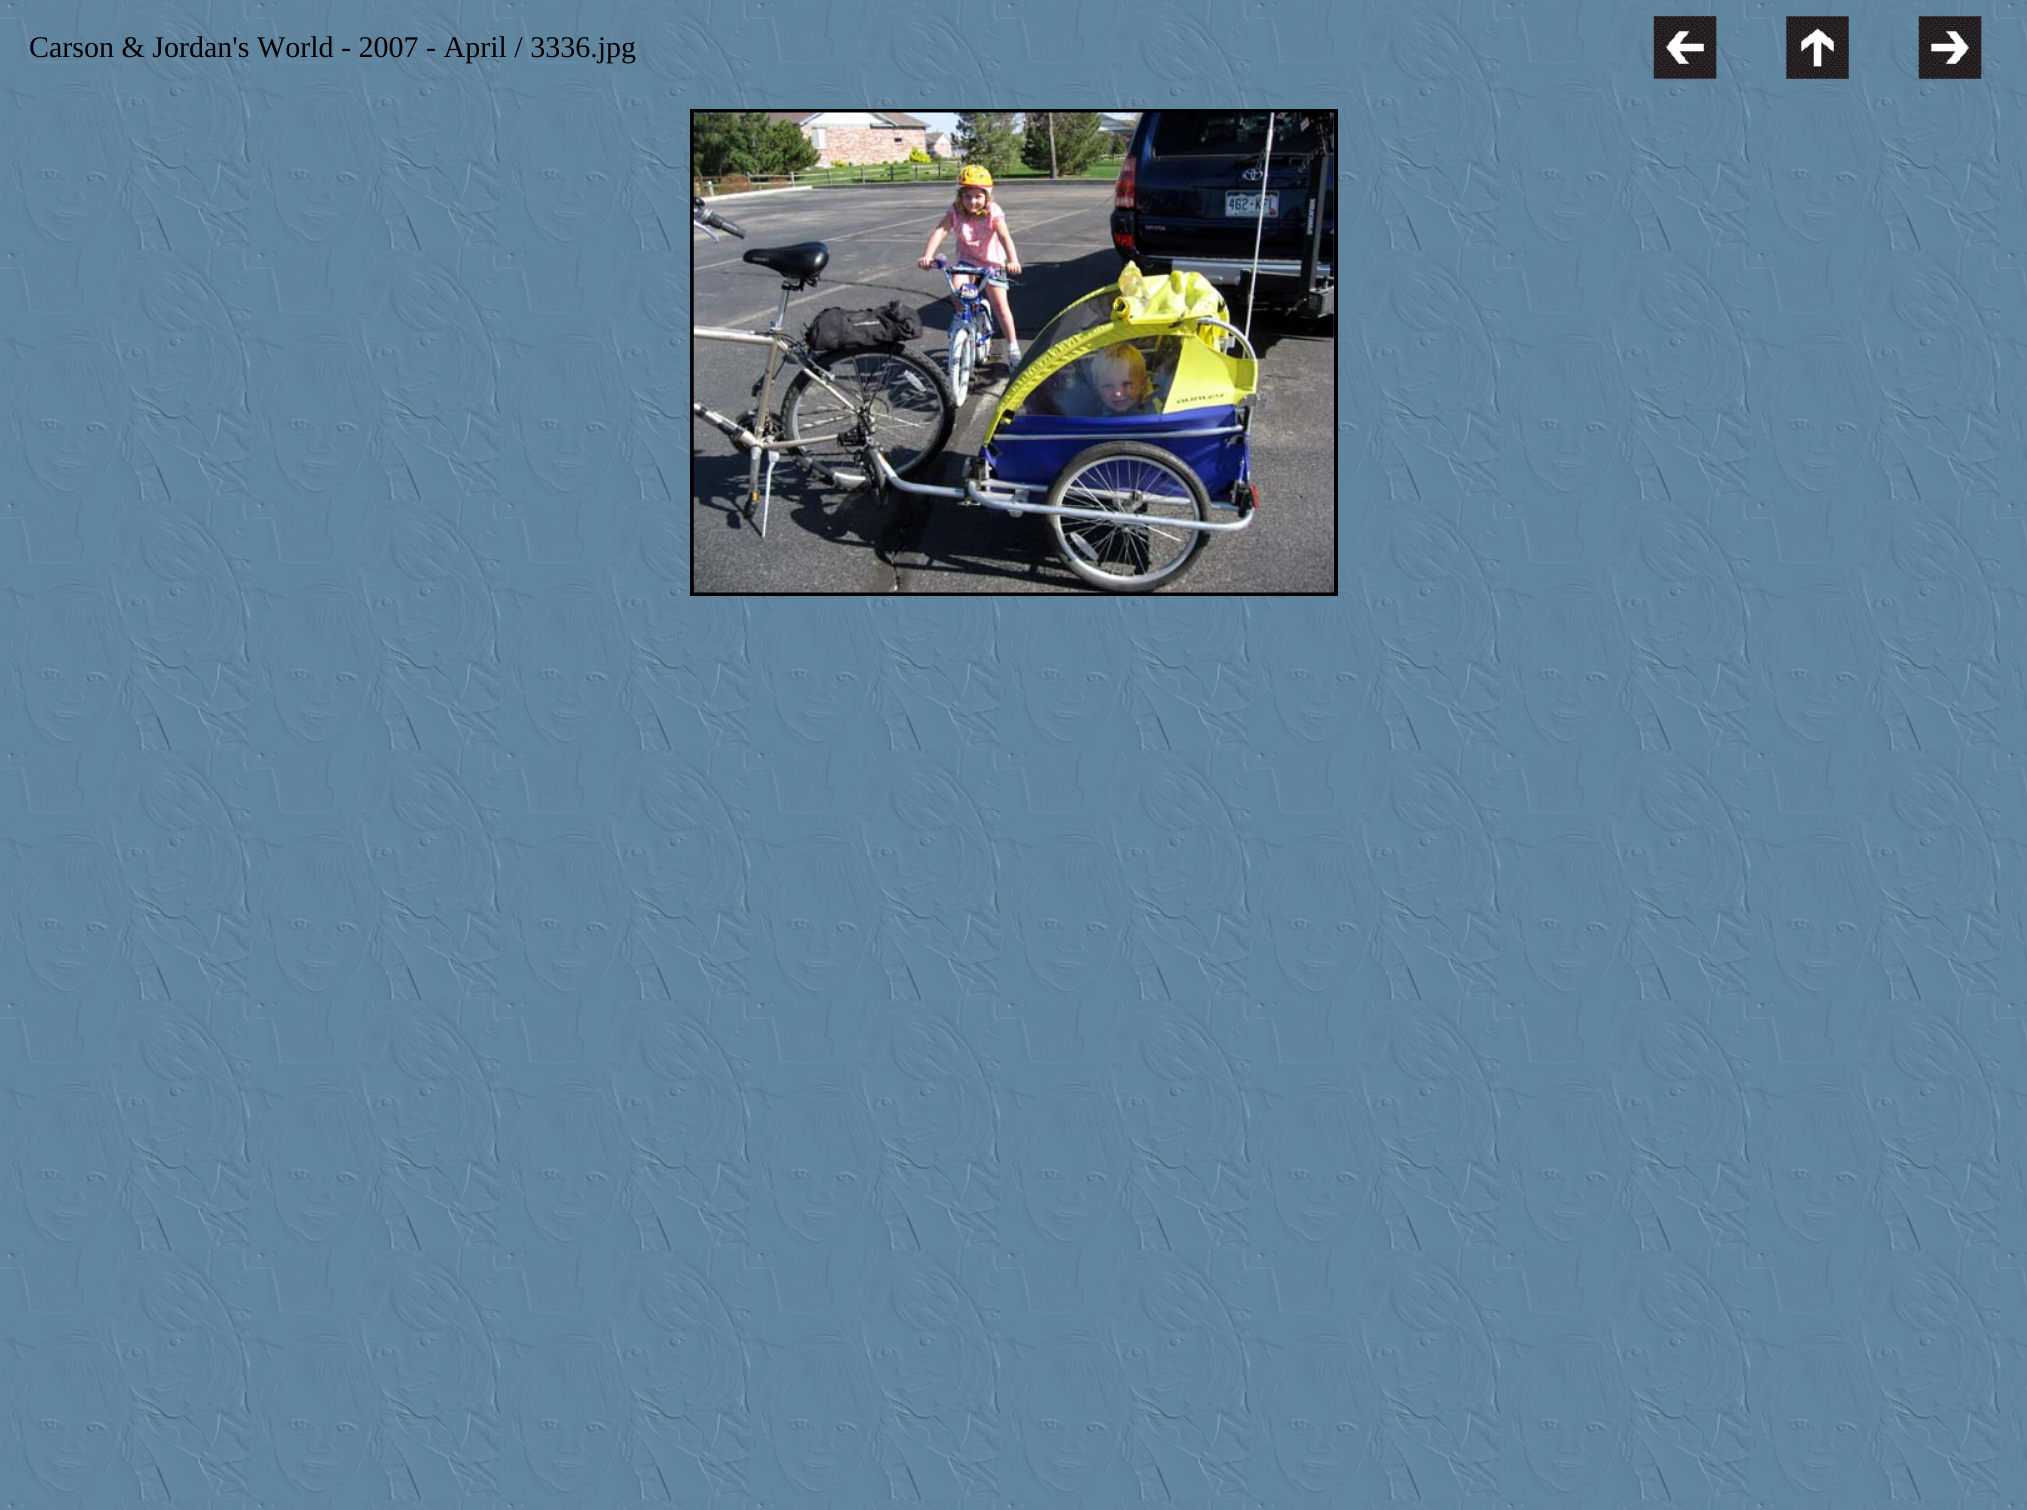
import math
import cairo


def paste(ctx, path, x, y, w, h):
	ctx.save()
	ctx.set_source_surface(cairo.ImageSurface.create_from_png(path), x, y)
	ctx.rectangle(x, y, w, h)
	ctx.fill()
	ctx.restore()

def draw(ctx):
	ctx.set_source_rgb(1, 1, 1)
	ctx.paint()
	paste(ctx, 'media/1.png', 0, 0, 2027, 1510)
	ctx.select_font_face('Liberation Serif')
	ctx.set_font_size(30)
	ctx.set_source_rgb(0, 0, 0)
	ctx.move_to(29, 57)
	ctx.show_text('Carson & Jordan\'s World - 2007 - April / 3336.jpg')
	paste(ctx, 'media/2.png', 1653, 16, 64, 63)
	paste(ctx, 'media/3.png', 1786, 16, 63, 63)
	paste(ctx, 'media/4.png', 1918, 16, 64, 63)
	ctx.rectangle(692, 111, 644, 483)
	ctx.set_line_width(4)
	ctx.stroke()
	paste(ctx, 'media/5.png', 693, 112, 641, 481)


surface = cairo.ImageSurface(cairo.FORMAT_RGB24, 2027, 1510)
ctx = cairo.Context(surface)
options = cairo.FontOptions()
options.set_hint_metrics(cairo.HINT_METRICS_OFF)
options.set_hint_style(cairo.HINT_STYLE_NONE)
ctx.set_font_options(options)
ctx.set_miter_limit(4)
draw(ctx)
surface.write_to_png('image.png')
